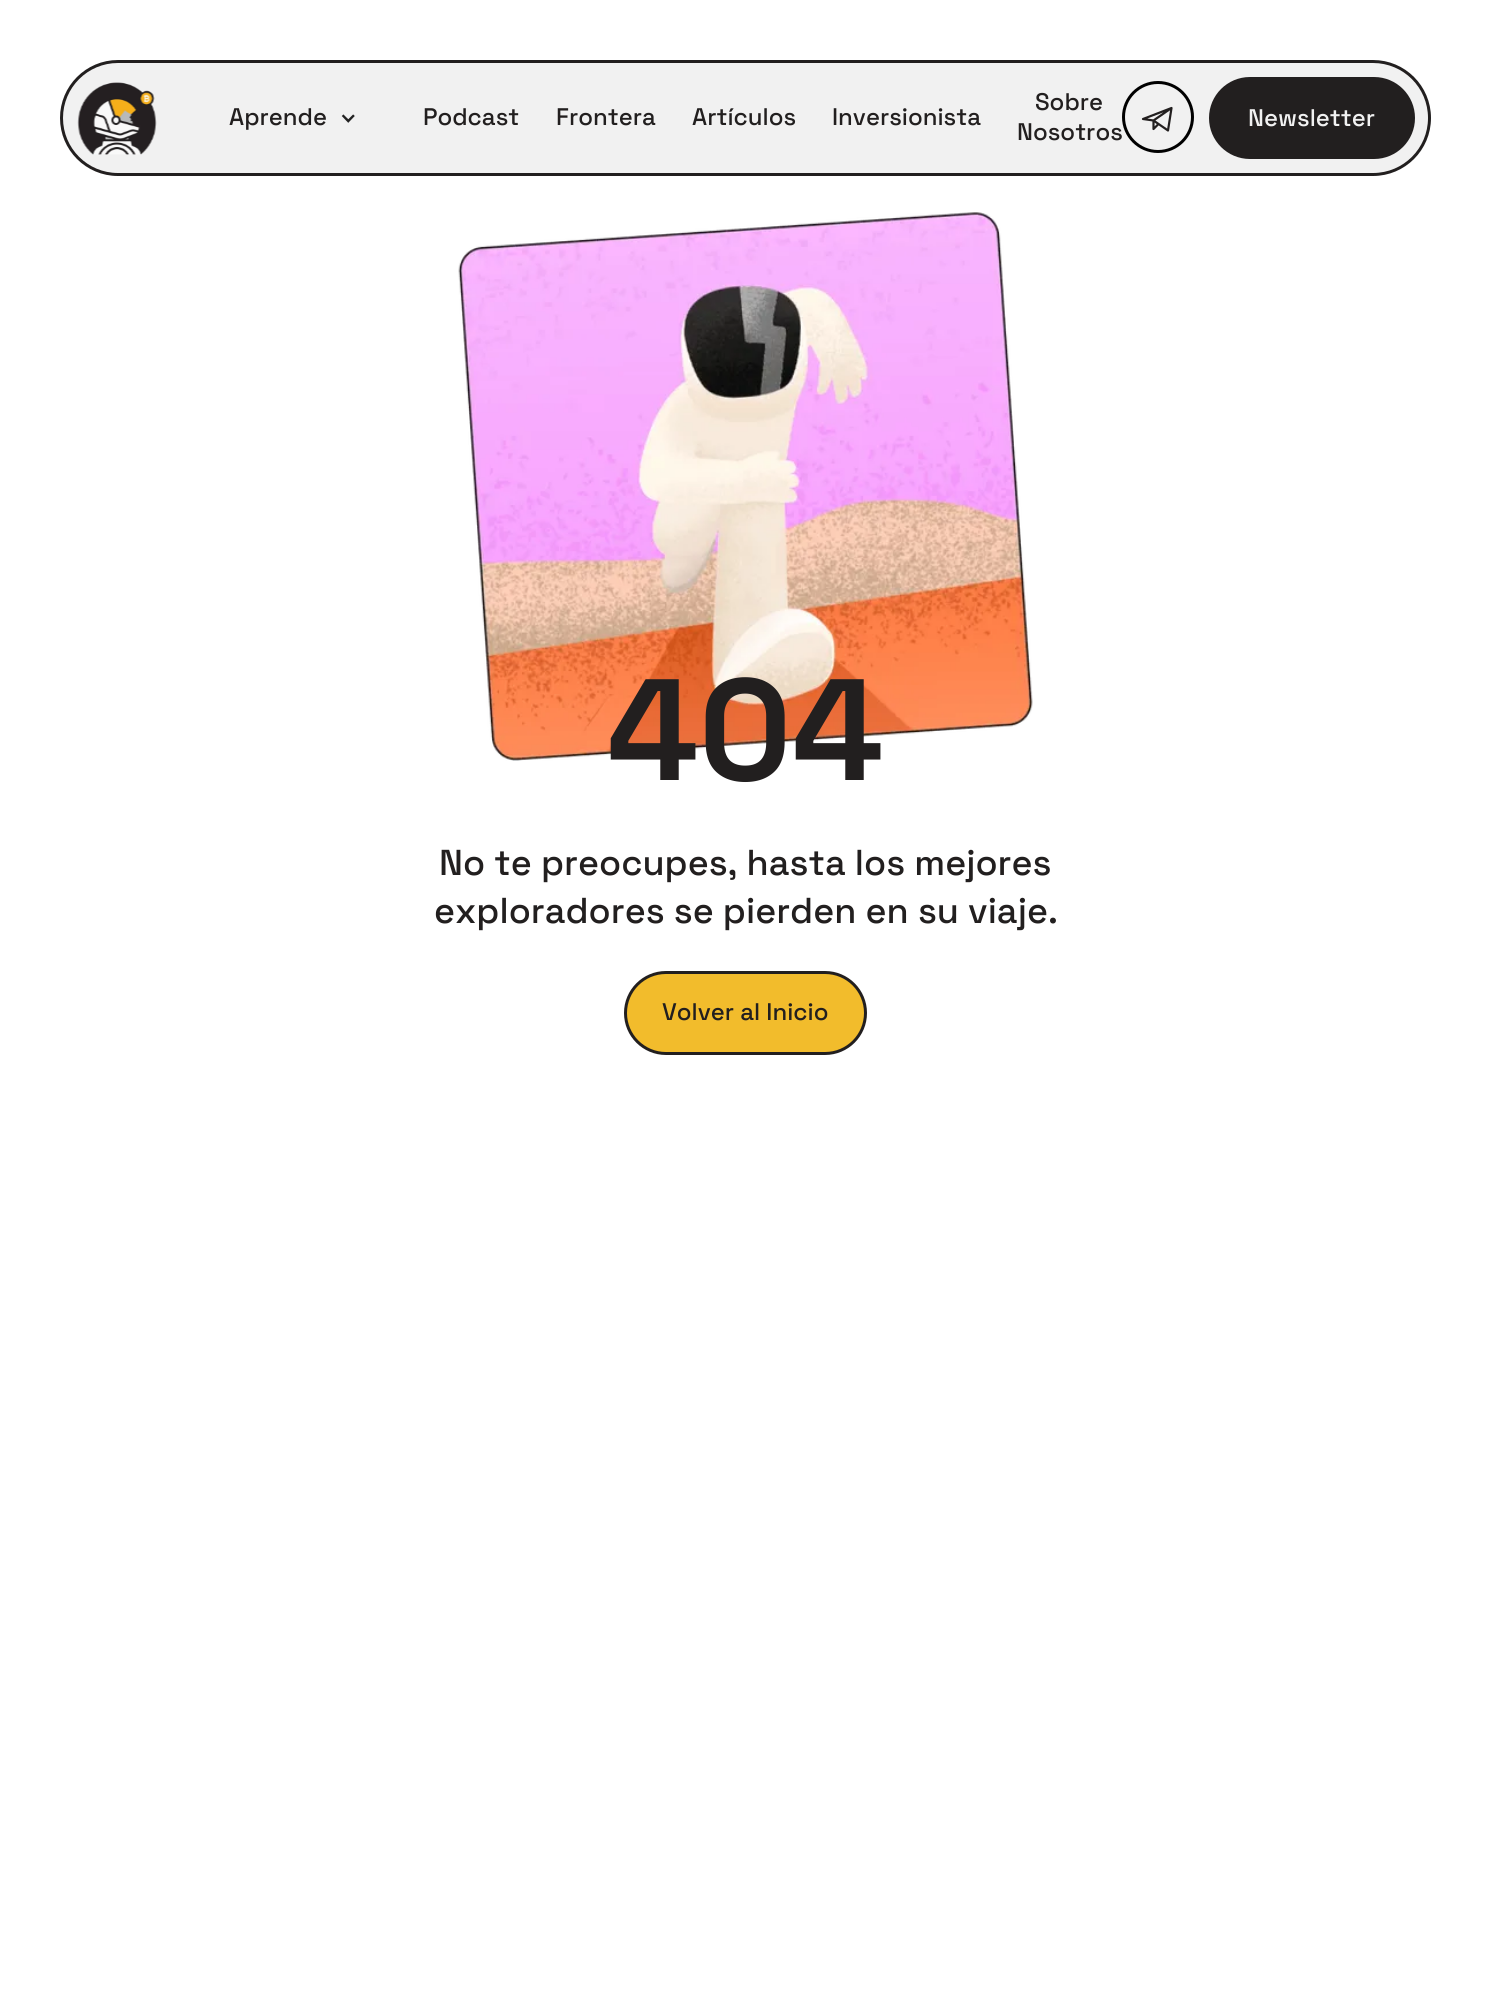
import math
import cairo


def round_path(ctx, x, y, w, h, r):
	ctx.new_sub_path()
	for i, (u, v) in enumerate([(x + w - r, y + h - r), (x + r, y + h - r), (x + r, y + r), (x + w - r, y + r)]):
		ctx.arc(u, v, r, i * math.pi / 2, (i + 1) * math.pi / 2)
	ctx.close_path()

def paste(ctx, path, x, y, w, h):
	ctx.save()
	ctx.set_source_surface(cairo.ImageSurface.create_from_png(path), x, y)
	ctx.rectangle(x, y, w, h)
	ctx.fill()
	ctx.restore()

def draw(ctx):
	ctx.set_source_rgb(1, 1, 1)
	ctx.paint()
	ctx.set_source_rgb(0.945, 0.945, 0.945)
	round_path(ctx, 61.5, 61.5, 1368, 113, 56.5)
	ctx.fill_preserve()
	ctx.set_source_rgb(0.133, 0.122, 0.122)
	ctx.set_line_width(3)
	ctx.stroke()
	paste(ctx, 'media/1.png', 77, 82, 80, 73)
	ctx.select_font_face('Space Grotesk Medium')
	ctx.set_font_size(24)
	ctx.move_to(229, 125)
	ctx.show_text('Aprende')
	paste(ctx, 'media/2.png', 341, 114, 14, 9)
	for x, y, s in [
		(423, 125, 'Podcast'),
		(556, 125, 'Frontera'),
		(692, 125, 'Artículos'),
		(832, 125, 'Inversionista'),
		(1035, 110, 'Sobre'),
		(1017, 140, 'Nosotros'),
	]:
		ctx.move_to(x, y)
		ctx.show_text(s)
	ctx.new_path()
	ctx.arc(1158, 117, 34.5, 0, 2 * math.pi)
	ctx.set_source_rgb(0, 0, 0)
	ctx.stroke()
	ctx.new_path()
	ctx.move_to(1171.5, 108)
	ctx.line_to(1143, 119)
	ctx.line_to(1153.5, 120.5)
	ctx.move_to(1171.5, 108)
	ctx.line_to(1168, 130.5)
	ctx.line_to(1153.5, 120.5)
	ctx.move_to(1171.5, 108)
	ctx.line_to(1153.5, 120.5)
	ctx.move_to(1153.5, 120.5)
	ctx.line_to(1153.5, 129)
	ctx.line_to(1158.5, 124)
	ctx.set_source_rgb(0.133, 0.122, 0.122)
	ctx.set_line_width(2.2)
	ctx.set_line_cap(cairo.LINE_CAP_ROUND)
	ctx.set_line_join(cairo.LINE_JOIN_ROUND)
	ctx.stroke()
	round_path(ctx, 1210.5, 78.5, 203, 79, 39.5)
	ctx.fill_preserve()
	ctx.set_line_width(3)
	ctx.set_line_cap(cairo.LINE_CAP_BUTT)
	ctx.set_line_join(cairo.LINE_JOIN_MITER)
	ctx.stroke()
	ctx.set_source_rgb(0.945, 0.945, 0.945)
	ctx.move_to(1248, 126)
	ctx.show_text('Newsletter')
	paste(ctx, 'media/3.png', 458, 212, 575, 549)
	ctx.select_font_face('Space Grotesk', cairo.FONT_SLANT_NORMAL, cairo.FONT_WEIGHT_BOLD)
	ctx.set_font_size(144)
	ctx.set_source_rgb(0.133, 0.122, 0.122)
	ctx.move_to(607, 780)
	ctx.show_text('404')
	ctx.select_font_face('Space Grotesk Medium')
	ctx.set_font_size(36)
	ctx.move_to(439, 875)
	ctx.show_text('No te preocupes, hasta los mejores')
	ctx.move_to(434, 923)
	ctx.show_text('exploradores se pierden en su viaje.')
	ctx.set_source_rgb(0.949, 0.737, 0.173)
	round_path(ctx, 625.5, 972.5, 240, 81, 40.5)
	ctx.fill_preserve()
	ctx.set_source_rgb(0.133, 0.122, 0.122)
	ctx.stroke()
	ctx.set_font_size(24)
	ctx.move_to(662, 1020)
	ctx.show_text('Volver al Inicio')


surface = cairo.ImageSurface(cairo.FORMAT_RGB24, 1490, 2006)
ctx = cairo.Context(surface)
options = cairo.FontOptions()
options.set_hint_metrics(cairo.HINT_METRICS_OFF)
options.set_hint_style(cairo.HINT_STYLE_NONE)
ctx.set_font_options(options)
ctx.set_miter_limit(4)
draw(ctx)
surface.write_to_png('image.png')
